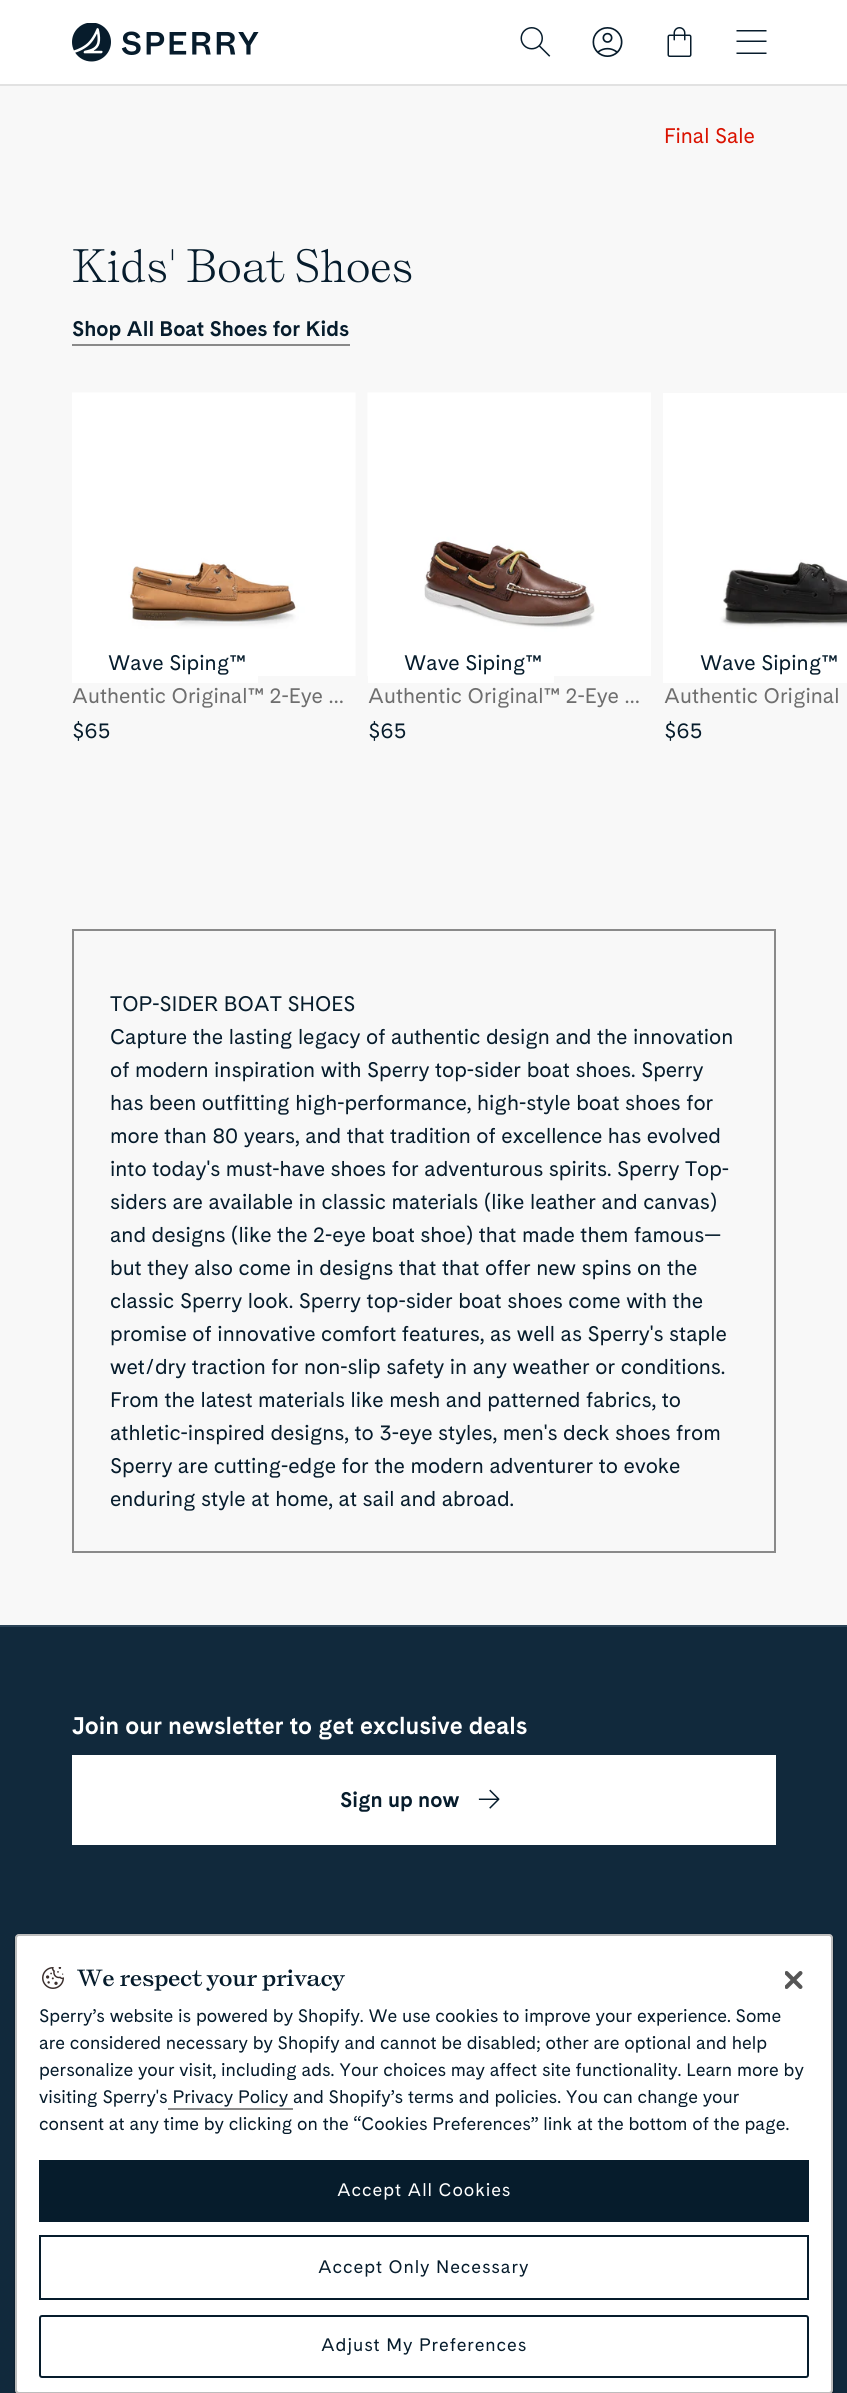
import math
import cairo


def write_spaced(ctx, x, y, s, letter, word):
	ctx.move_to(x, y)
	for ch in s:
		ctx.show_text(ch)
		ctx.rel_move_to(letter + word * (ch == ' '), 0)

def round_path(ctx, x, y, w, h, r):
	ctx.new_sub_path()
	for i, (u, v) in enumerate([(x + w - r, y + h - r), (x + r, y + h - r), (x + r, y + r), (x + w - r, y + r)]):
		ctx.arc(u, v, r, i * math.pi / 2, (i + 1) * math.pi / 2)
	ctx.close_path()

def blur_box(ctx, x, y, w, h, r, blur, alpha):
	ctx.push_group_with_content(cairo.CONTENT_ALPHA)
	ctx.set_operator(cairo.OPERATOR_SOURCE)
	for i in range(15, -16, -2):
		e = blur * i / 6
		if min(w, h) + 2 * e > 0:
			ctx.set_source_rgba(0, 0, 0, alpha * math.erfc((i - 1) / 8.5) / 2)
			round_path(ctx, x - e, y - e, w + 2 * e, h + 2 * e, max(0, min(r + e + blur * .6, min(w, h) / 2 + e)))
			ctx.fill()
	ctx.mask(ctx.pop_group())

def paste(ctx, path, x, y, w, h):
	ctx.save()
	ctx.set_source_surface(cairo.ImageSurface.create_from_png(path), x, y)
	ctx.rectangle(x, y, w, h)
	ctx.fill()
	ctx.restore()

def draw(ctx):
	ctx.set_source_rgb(0.969, 0.969, 0.969)
	ctx.paint()
	ctx.set_source_rgb(1, 1, 1)
	ctx.rectangle(0, 0, 847, 84)
	ctx.fill()
	ctx.set_source_rgb(0.886, 0.886, 0.886)
	ctx.rectangle(0, 84, 847, 2)
	ctx.fill()
	paste(ctx, 'media/1.png', 72, 23, 187, 39)
	paste(ctx, 'media/2.png', 520, 27, 31, 30)
	paste(ctx, 'media/3.png', 592, 27, 31, 30)
	paste(ctx, 'media/4.png', 667, 27, 25, 30)
	paste(ctx, 'media/5.png', 736, 30, 31, 24)
	ctx.select_font_face('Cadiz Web')
	ctx.set_font_size(21)
	ctx.set_source_rgb(0.855, 0.071, 0)
	ctx.move_to(664, 143)
	ctx.show_text('Final Sale')
	ctx.select_font_face('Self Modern')
	ctx.set_font_size(42)
	ctx.set_source_rgb(0.027, 0.11, 0.173)
	ctx.move_to(72, 282)
	ctx.show_text('Kids\' Boat Shoes')
	ctx.set_source_rgb(0.541, 0.541, 0.541)
	ctx.rectangle(72, 344, 278, 2)
	ctx.fill()
	ctx.select_font_face('Cadiz Web', cairo.FONT_SLANT_NORMAL, cairo.FONT_WEIGHT_BOLD)
	ctx.set_font_size(21)
	ctx.set_source_rgb(0.027, 0.11, 0.173)
	ctx.move_to(72, 336)
	ctx.show_text('Shop All Boat Shoes for Kids')
	paste(ctx, 'media/6.png', 72, 392, 284, 284)
	ctx.set_source_rgb(1, 1, 1)
	ctx.rectangle(72, 676, 186, 7)
	ctx.fill()
	ctx.select_font_face('Cadiz Web')
	ctx.set_source_rgb(0.027, 0.11, 0.173)
	ctx.move_to(108, 670)
	ctx.show_text('Wave Siping™')
	ctx.set_source_rgb(0.431, 0.431, 0.431)
	ctx.move_to(72, 703)
	ctx.show_text('Authentic Original™ 2-Eye …')
	ctx.set_source_rgb(0.027, 0.11, 0.173)
	ctx.move_to(72, 738)
	ctx.show_text('$65')
	paste(ctx, 'media/7.png', 367, 392, 284, 284)
	ctx.set_source_rgb(1, 1, 1)
	ctx.rectangle(368, 676, 186, 7)
	ctx.fill()
	ctx.set_source_rgb(0.027, 0.11, 0.173)
	ctx.move_to(404, 670)
	ctx.show_text('Wave Siping™')
	ctx.set_source_rgb(0.431, 0.431, 0.431)
	ctx.move_to(368, 703)
	ctx.show_text('Authentic Original™ 2-Eye …')
	ctx.set_source_rgb(0.027, 0.11, 0.173)
	ctx.move_to(368, 738)
	ctx.show_text('$65')
	paste(ctx, 'media/8.png', 663, 393, 184, 251)
	ctx.set_source_rgb(1, 1, 1)
	ctx.rectangle(663, 644, 184, 39)
	ctx.fill()
	ctx.set_source_rgb(0.027, 0.11, 0.173)
	ctx.move_to(700, 670)
	ctx.show_text('Wave Siping™')
	ctx.set_source_rgb(0.431, 0.431, 0.431)
	ctx.move_to(664, 703)
	ctx.show_text('Authentic Original')
	ctx.set_source_rgb(0.027, 0.11, 0.173)
	ctx.move_to(664, 738)
	ctx.show_text('$65')
	ctx.rectangle(73, 930, 702, 622)
	ctx.set_source_rgb(0.541, 0.541, 0.541)
	ctx.stroke()
	ctx.set_source_rgb(0.027, 0.11, 0.173)
	for x, y, s in [
		(110, 1011, 'TOP-SIDER BOAT SHOES'),
		(110, 1044, 'Capture the lasting legacy of authentic design and the innovation'),
		(110, 1077, 'of modern inspiration with Sperry top-sider boat shoes. Sperry'),
		(110, 1110, 'has been outfitting high-performance, high-style boat shoes for'),
		(110, 1143, 'more than 80 years, and that tradition of excellence has evolved'),
		(110, 1176, 'into today\'s must-have shoes for adventurous spirits. Sperry Top-'),
		(110, 1209, 'siders are available in classic materials (like leather and canvas)'),
		(110, 1242, 'and designs (like the 2-eye boat shoe) that made them famous—'),
		(110, 1275, 'but they also come in designs that that offer new spins on the'),
		(110, 1308, 'classic Sperry look. Sperry top-sider boat shoes come with the'),
		(110, 1341, 'promise of innovative comfort features, as well as Sperry\'s staple'),
		(110, 1374, 'wet/dry traction for non-slip safety in any weather or conditions.'),
		(110, 1407, 'From the latest materials like mesh and patterned fabrics, to'),
		(110, 1440, 'athletic-inspired designs, to 3-eye styles, men\'s deck shoes from'),
		(110, 1473, 'Sperry are cutting-edge for the modern adventurer to evoke'),
		(110, 1506, 'enduring style at home, at sail and abroad.'),
	]:
		ctx.move_to(x, y)
		ctx.show_text(s)
	ctx.set_source_rgb(0.067, 0.161, 0.235)
	ctx.rectangle(0, 1627, 847, 766)
	ctx.fill()
	ctx.set_source_rgb(0.165, 0.263, 0.337)
	ctx.rectangle(0, 1625, 847, 2)
	ctx.fill()
	ctx.select_font_face('Cadiz Web', cairo.FONT_SLANT_NORMAL, cairo.FONT_WEIGHT_BOLD)
	ctx.set_font_size(24)
	ctx.set_source_rgb(1, 1, 1)
	ctx.move_to(72, 1734)
	ctx.show_text('Join our newsletter to get exclusive deals')
	ctx.rectangle(72, 1755, 704, 90)
	ctx.fill()
	ctx.set_font_size(21)
	ctx.set_source_rgb(0.027, 0.11, 0.173)
	ctx.move_to(340, 1807)
	ctx.show_text('Sign up now')
	paste(ctx, 'media/9.png', 478, 1789, 22, 20)
	ctx.set_source_rgb(0, 0, 0)
	blur_box(ctx, 15, 1935, 818, 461, 4, 1, 0.5)
	ctx.set_source_rgb(1, 1, 1)
	round_path(ctx, 15, 1934, 818, 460, 4)
	ctx.fill()
	round_path(ctx, 16, 1935, 816, 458, 3)
	ctx.set_source_rgba(0, 0, 0, 0.26)
	ctx.stroke()
	paste(ctx, 'media/10.png', 42, 1967, 22, 22)
	ctx.select_font_face('Self Modern SemiBold')
	ctx.set_source_rgb(0.027, 0.11, 0.173)
	ctx.move_to(77, 1986)
	ctx.show_text('We respect your privacy')
	ctx.select_font_face('Cadiz Web')
	ctx.set_font_size(18)
	for x, y, s in [
		(39, 2022, 'Sperry’s website is powered by Shopify. We use cookies to improve your experience. Some'),
		(39, 2049, 'are considered necessary by Shopify and cannot be disabled; other are optional and help'),
		(39, 2076, 'personalize your visit, including ads. Your choices may affect site functionality. Learn more by'),
		(39, 2103, 'visiting Sperry\'s Privacy Policy and Shopify’s terms and policies. You can change your'),
	]:
		ctx.move_to(x, y)
		ctx.show_text(s)
	ctx.set_source_rgb(0.541, 0.541, 0.541)
	ctx.rectangle(168, 2108, 125, 2)
	ctx.fill()
	ctx.set_source_rgb(0.027, 0.11, 0.173)
	ctx.move_to(39, 2130)
	ctx.show_text('consent at any time by clicking on the “Cookies Preferences” link at the bottom of the page.')
	paste(ctx, 'media/11.png', 785, 1971, 18, 18)
	ctx.rectangle(39, 2160, 770, 62)
	ctx.fill()
	ctx.set_source_rgb(1, 1, 1)
	write_spaced(ctx, 337, 2196, 'Accept All Cookies', 0.9, 0)
	ctx.rectangle(40, 2236, 768, 63)
	ctx.set_source_rgb(0.027, 0.11, 0.173)
	ctx.stroke()
	write_spaced(ctx, 318, 2273, 'Accept Only Necessary', 0.9, 0)
	round_path(ctx, 40, 2316, 768, 61, 2)
	ctx.stroke()
	write_spaced(ctx, 321, 2351, 'Adjust My Preferences', 0.9, 0)


surface = cairo.ImageSurface(cairo.FORMAT_RGB24, 847, 2393)
ctx = cairo.Context(surface)
options = cairo.FontOptions()
options.set_hint_metrics(cairo.HINT_METRICS_OFF)
options.set_hint_style(cairo.HINT_STYLE_NONE)
ctx.set_font_options(options)
ctx.set_miter_limit(4)
draw(ctx)
surface.write_to_png('image.png')
